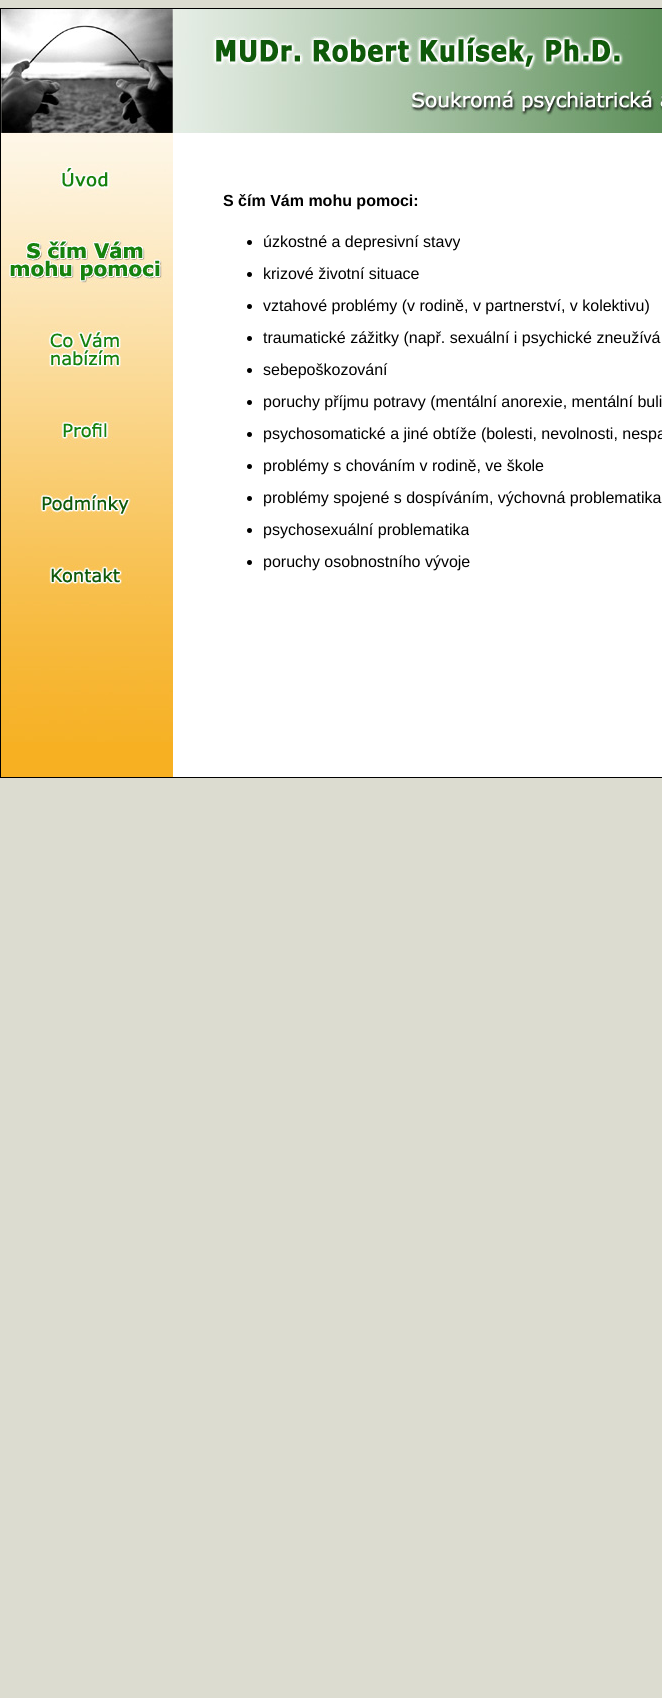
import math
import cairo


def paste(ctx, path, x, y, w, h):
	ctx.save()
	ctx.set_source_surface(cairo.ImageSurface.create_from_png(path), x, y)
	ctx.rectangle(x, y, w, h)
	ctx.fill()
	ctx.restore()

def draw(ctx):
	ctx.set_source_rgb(0.863, 0.863, 0.816)
	ctx.paint()
	ctx.set_source_rgb(0, 0, 0)
	ctx.rectangle(0, 8, 662, 770)
	ctx.fill()
	ctx.set_source_rgb(1, 1, 1)
	ctx.rectangle(173, 133, 489, 644)
	ctx.fill()
	paste(ctx, 'media/1.png', 1, 9, 172, 131)
	paste(ctx, 'media/2.png', 173, 9, 50, 124)
	paste(ctx, 'media/3.png', 223, 9, 439, 125)
	ctx.set_source_rgb(0.965, 0.69, 0.133)
	ctx.rectangle(1, 742, 172, 35)
	ctx.fill()
	paste(ctx, 'media/4.png', 1, 140, 172, 72)
	paste(ctx, 'media/5.png', 1, 212, 172, 92)
	paste(ctx, 'media/6.png', 1, 304, 172, 92)
	paste(ctx, 'media/7.png', 1, 396, 172, 72)
	paste(ctx, 'media/8.png', 1, 468, 172, 72)
	paste(ctx, 'media/9.png', 1, 540, 172, 72)
	paste(ctx, 'media/10.png', 1, 612, 172, 130)
	ctx.select_font_face('Liberation Sans', cairo.FONT_SLANT_NORMAL, cairo.FONT_WEIGHT_BOLD)
	ctx.set_font_size(16)
	ctx.set_source_rgb(0, 0, 0)
	ctx.move_to(223, 206)
	ctx.show_text('S čím Vám mohu pomoci:')
	ctx.new_path()
	ctx.arc(249.5, 242.5, 2.5, 0, 2 * math.pi)
	ctx.fill()
	ctx.select_font_face('Liberation Sans')
	ctx.move_to(263, 247)
	ctx.show_text('úzkostné a depresivní stavy')
	ctx.new_path()
	ctx.arc(249.5, 274.5, 2.5, 0, 2 * math.pi)
	ctx.fill()
	ctx.move_to(263, 279)
	ctx.show_text('krizové životní situace')
	ctx.new_path()
	ctx.arc(249.5, 306.5, 2.5, 0, 2 * math.pi)
	ctx.fill()
	ctx.move_to(263, 311)
	ctx.show_text('vztahové problémy (v rodině, v partnerství, v kolektivu)')
	ctx.new_path()
	ctx.arc(249.5, 338.5, 2.5, 0, 2 * math.pi)
	ctx.fill()
	ctx.move_to(263, 343)
	ctx.show_text('traumatické zážitky (např. sexuální i psychické zneužívá')
	ctx.new_path()
	ctx.arc(249.5, 370.5, 2.5, 0, 2 * math.pi)
	ctx.fill()
	ctx.move_to(263, 375)
	ctx.show_text('sebepoškozování')
	ctx.new_path()
	ctx.arc(249.5, 402.5, 2.5, 0, 2 * math.pi)
	ctx.fill()
	ctx.move_to(263, 407)
	ctx.show_text('poruchy příjmu potravy (mentální anorexie, mentální buli')
	ctx.new_path()
	ctx.arc(249.5, 434.5, 2.5, 0, 2 * math.pi)
	ctx.fill()
	ctx.move_to(263, 439)
	ctx.show_text('psychosomatické a jiné obtíže (bolesti, nevolnosti, nespa')
	ctx.new_path()
	ctx.arc(249.5, 466.5, 2.5, 0, 2 * math.pi)
	ctx.fill()
	ctx.move_to(263, 471)
	ctx.show_text('problémy s chováním v rodině, ve škole')
	ctx.new_path()
	ctx.arc(249.5, 498.5, 2.5, 0, 2 * math.pi)
	ctx.fill()
	ctx.move_to(263, 503)
	ctx.show_text('problémy spojené s dospíváním, výchovná problematika')
	ctx.new_path()
	ctx.arc(249.5, 530.5, 2.5, 0, 2 * math.pi)
	ctx.fill()
	ctx.move_to(263, 535)
	ctx.show_text('psychosexuální problematika')
	ctx.new_path()
	ctx.arc(249.5, 562.5, 2.5, 0, 2 * math.pi)
	ctx.fill()
	ctx.move_to(263, 567)
	ctx.show_text('poruchy osobnostního vývoje')


surface = cairo.ImageSurface(cairo.FORMAT_RGB24, 662, 1698)
ctx = cairo.Context(surface)
options = cairo.FontOptions()
options.set_hint_metrics(cairo.HINT_METRICS_OFF)
options.set_hint_style(cairo.HINT_STYLE_NONE)
ctx.set_font_options(options)
ctx.set_miter_limit(4)
draw(ctx)
surface.write_to_png('image.png')
